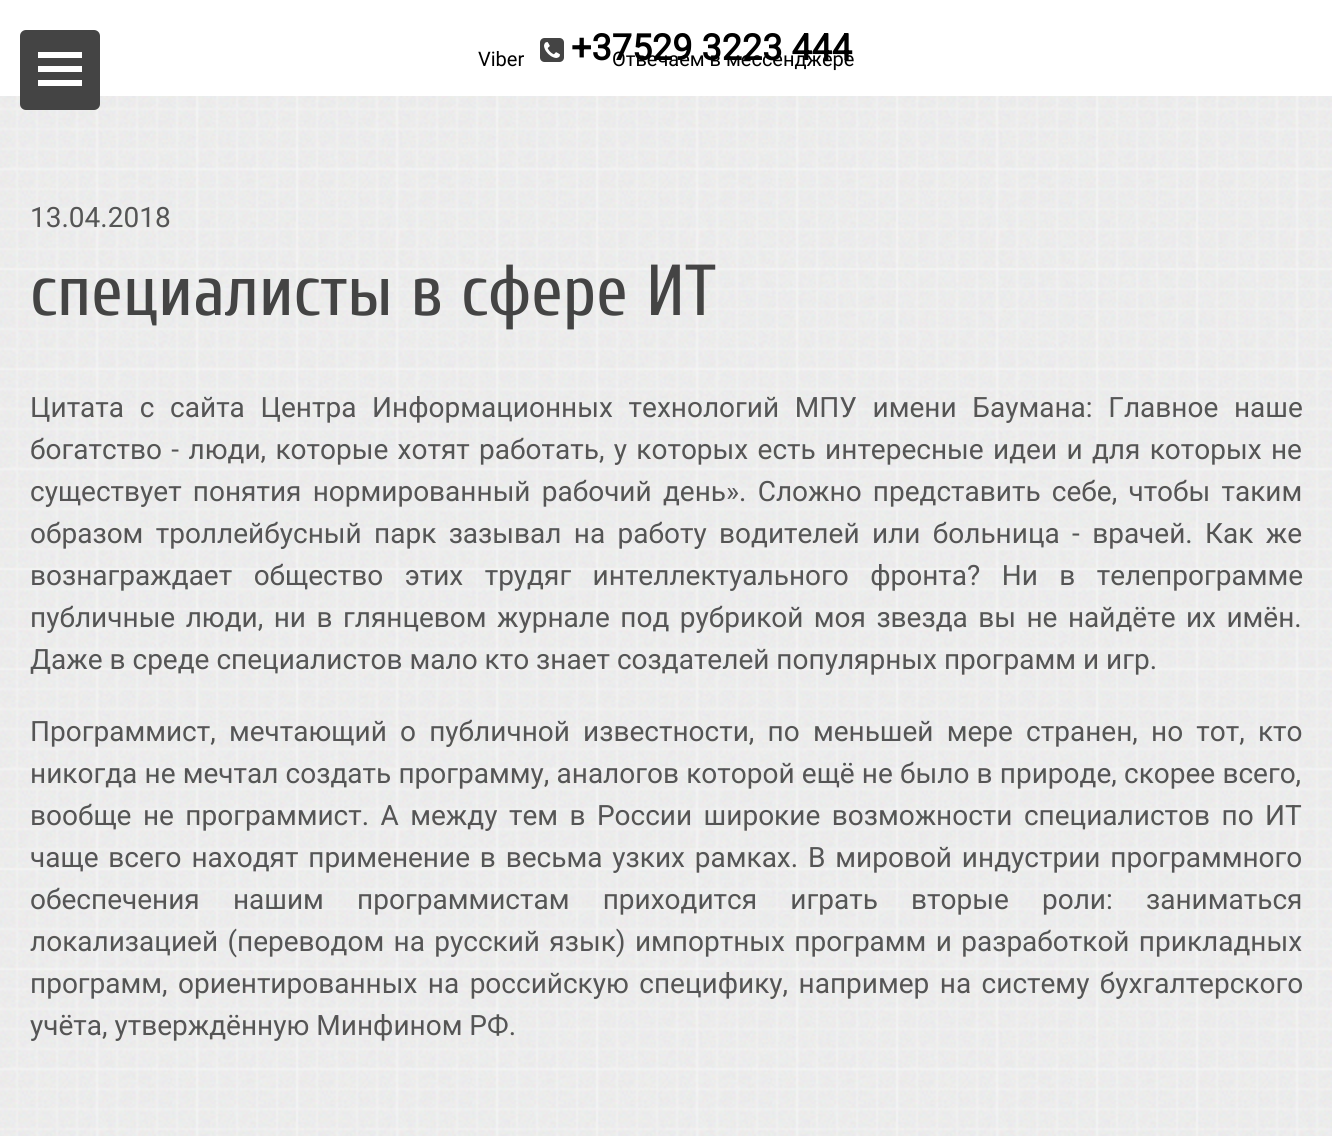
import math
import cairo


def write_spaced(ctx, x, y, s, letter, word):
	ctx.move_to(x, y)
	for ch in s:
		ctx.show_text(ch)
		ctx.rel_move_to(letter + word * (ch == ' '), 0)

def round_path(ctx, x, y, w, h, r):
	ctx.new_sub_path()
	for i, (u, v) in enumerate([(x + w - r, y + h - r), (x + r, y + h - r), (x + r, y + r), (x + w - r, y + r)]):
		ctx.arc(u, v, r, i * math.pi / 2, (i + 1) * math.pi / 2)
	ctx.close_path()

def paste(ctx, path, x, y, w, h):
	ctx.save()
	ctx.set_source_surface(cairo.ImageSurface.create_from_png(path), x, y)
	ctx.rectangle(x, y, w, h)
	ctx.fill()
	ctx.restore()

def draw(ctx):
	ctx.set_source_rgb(1, 1, 1)
	ctx.paint()
	paste(ctx, 'media/2.png', 0, 96, 1332, 1040)
	ctx.set_source_rgb(0.267, 0.267, 0.267)
	round_path(ctx, 20, 30, 80, 80, 6)
	ctx.fill()
	ctx.set_source_rgb(1, 1, 1)
	ctx.rectangle(38, 52, 44, 6)
	ctx.rectangle(38, 66, 44, 6)
	ctx.rectangle(38, 80, 44, 6)
	ctx.fill()
	paste(ctx, 'media/1.png', 540, 38, 24, 24)
	ctx.select_font_face('Roboto', cairo.FONT_SLANT_NORMAL, cairo.FONT_WEIGHT_BOLD)
	ctx.set_font_size(36)
	ctx.set_source_rgb(0, 0, 0)
	ctx.move_to(571, 60)
	ctx.show_text('+37529 3223 444')
	ctx.select_font_face('Roboto')
	ctx.set_font_size(20)
	ctx.move_to(478, 66)
	ctx.show_text('Viber')
	ctx.move_to(612, 66)
	ctx.show_text('Отвечаем в мессенджере')
	ctx.set_font_size(28)
	ctx.set_source_rgb(0.333, 0.333, 0.333)
	ctx.move_to(30, 227)
	ctx.show_text('13.04.2018')
	ctx.select_font_face('Cuprum')
	ctx.set_font_size(72)
	ctx.set_source_rgb(0.267, 0.267, 0.267)
	ctx.move_to(30, 315)
	ctx.show_text('специалисты в сфере ИТ')
	ctx.select_font_face('Roboto')
	ctx.set_font_size(28)
	ctx.set_source_rgb(0.333, 0.333, 0.333)
	write_spaced(ctx, 30, 417, 'Цитата с сайта Центра Информационных технологий МПУ имени Баумана: Главное наше', 0, 8.75)
	write_spaced(ctx, 30, 459, 'богатство - люди, которые хотят работать, у которых есть интересные идеи и для которых не', 0, 2.4)
	write_spaced(ctx, 30, 501, 'существует понятия нормированный рабочий день». Сложно представить себе, чтобы таким', 0, 4.25)
	write_spaced(ctx, 30, 543, 'образом троллейбусный парк зазывал на работу водителей или больница - врачей. Как же', 0, 5.4)
	write_spaced(ctx, 30, 585, 'вознаграждает общество этих трудяг интеллектуального фронта? Ни в телепрограмме', 0, 14.5)
	write_spaced(ctx, 30, 627, 'публичные люди, ни в глянцевом журнале под рубрикой моя звезда вы не найдёте их имён.', 0, 3.5)
	ctx.move_to(30, 669)
	ctx.show_text('Даже в среде специалистов мало кто знает создателей популярных программ и игр.')
	write_spaced(ctx, 30, 741, 'Программист, мечтающий о публичной известности, по меньшей мере странен, но тот, кто', 0, 6.25)
	write_spaced(ctx, 30, 783, 'никогда не мечтал создать программу, аналогов которой ещё не было в природе, скорее всего,', 0, 0.25)
	write_spaced(ctx, 30, 825, 'вообще не программист. А между тем в России широкие возможности специалистов по ИТ', 0, 4.5)
	write_spaced(ctx, 30, 867, 'чаще всего находят применение в весьма узких рамках. В мировой индустрии программного', 0, 2.9)
	write_spaced(ctx, 30, 909, 'обеспечения нашим программистам приходится играть вторые роли: заниматься', 0, 26.25)
	write_spaced(ctx, 30, 951, 'локализацией (переводом на русский язык) импортных программ и разработкой прикладных', 0, 2.4)
	write_spaced(ctx, 30, 993, 'программ, ориентированных на российскую специфику, например на систему бухгалтерского', 0, 3.5)
	ctx.move_to(30, 1035)
	ctx.show_text('учёта, утверждённую Минфином РФ.')


surface = cairo.ImageSurface(cairo.FORMAT_RGB24, 1332, 1136)
ctx = cairo.Context(surface)
options = cairo.FontOptions()
options.set_hint_metrics(cairo.HINT_METRICS_OFF)
options.set_hint_style(cairo.HINT_STYLE_NONE)
ctx.set_font_options(options)
ctx.set_miter_limit(4)
draw(ctx)
surface.write_to_png('image.png')
